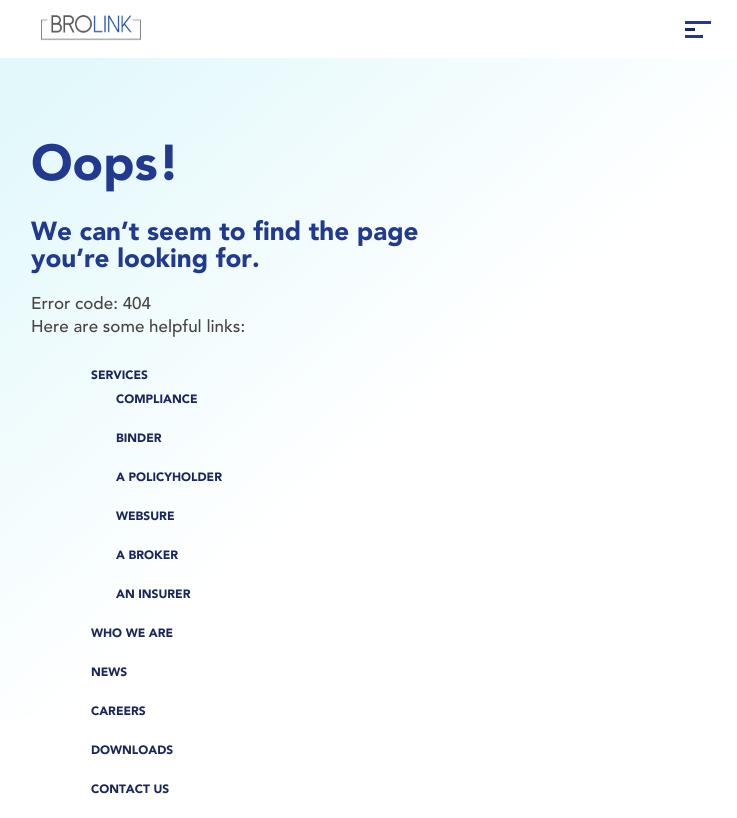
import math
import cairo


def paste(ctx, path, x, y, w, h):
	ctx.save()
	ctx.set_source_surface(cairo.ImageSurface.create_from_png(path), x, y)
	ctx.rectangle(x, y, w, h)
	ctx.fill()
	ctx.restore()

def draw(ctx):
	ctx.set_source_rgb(1, 1, 1)
	ctx.paint()
	paste(ctx, 'media/1.png', 41, 15, 100, 26)
	ctx.set_source_rgb(0.129, 0.224, 0.557)
	ctx.rectangle(685, 21, 26, 3)
	ctx.fill()
	ctx.set_source_rgb(0.106, 0.149, 0.349)
	ctx.rectangle(685, 28, 10, 3)
	ctx.fill()
	ctx.set_source_rgb(0.129, 0.224, 0.557)
	ctx.rectangle(685, 35, 18, 3)
	ctx.fill()
	gradient = cairo.LinearGradient(355, 471, 27, 89)
	gradient.add_color_stop_rgba(0, 1, 1, 1, 1)
	gradient.add_color_stop_rgba(1, 0.886, 0.973, 0.984, 1)
	ctx.set_source(gradient)
	ctx.rectangle(0, 58, 737, 660)
	ctx.fill()
	ctx.select_font_face('Avenir Black')
	ctx.set_font_size(50)
	ctx.set_source_rgb(0.129, 0.224, 0.557)
	ctx.move_to(31, 180)
	ctx.show_text('Oops!')
	ctx.set_font_size(26)
	ctx.move_to(31, 240)
	ctx.show_text('We can’t seem to find the page')
	ctx.move_to(31, 267)
	ctx.show_text('you’re looking for.')
	ctx.select_font_face('Avenir Medium')
	ctx.set_font_size(17)
	ctx.set_source_rgb(0.282, 0.267, 0.259)
	ctx.move_to(31, 309)
	ctx.show_text('Error code: 404')
	ctx.move_to(31, 332)
	ctx.show_text('Here are some helpful links:')
	ctx.select_font_face('Avenir Black')
	ctx.set_font_size(12)
	ctx.set_source_rgb(0.106, 0.149, 0.349)
	for x, y, s in [
		(91, 379, 'SERVICES'),
		(116, 403, 'COMPLIANCE'),
		(116, 442, 'BINDER'),
		(116, 481, 'A POLICYHOLDER'),
		(116, 520, 'WEBSURE'),
		(116, 559, 'A BROKER'),
		(116, 598, 'AN INSURER'),
		(91, 637, 'WHO WE ARE'),
		(91, 676, 'NEWS'),
		(91, 715, 'CAREERS'),
		(91, 754, 'DOWNLOADS'),
		(91, 793, 'CONTACT US'),
	]:
		ctx.move_to(x, y)
		ctx.show_text(s)


surface = cairo.ImageSurface(cairo.FORMAT_RGB24, 737, 818)
ctx = cairo.Context(surface)
options = cairo.FontOptions()
options.set_hint_metrics(cairo.HINT_METRICS_OFF)
options.set_hint_style(cairo.HINT_STYLE_NONE)
ctx.set_font_options(options)
ctx.set_miter_limit(4)
draw(ctx)
surface.write_to_png('image.png')
